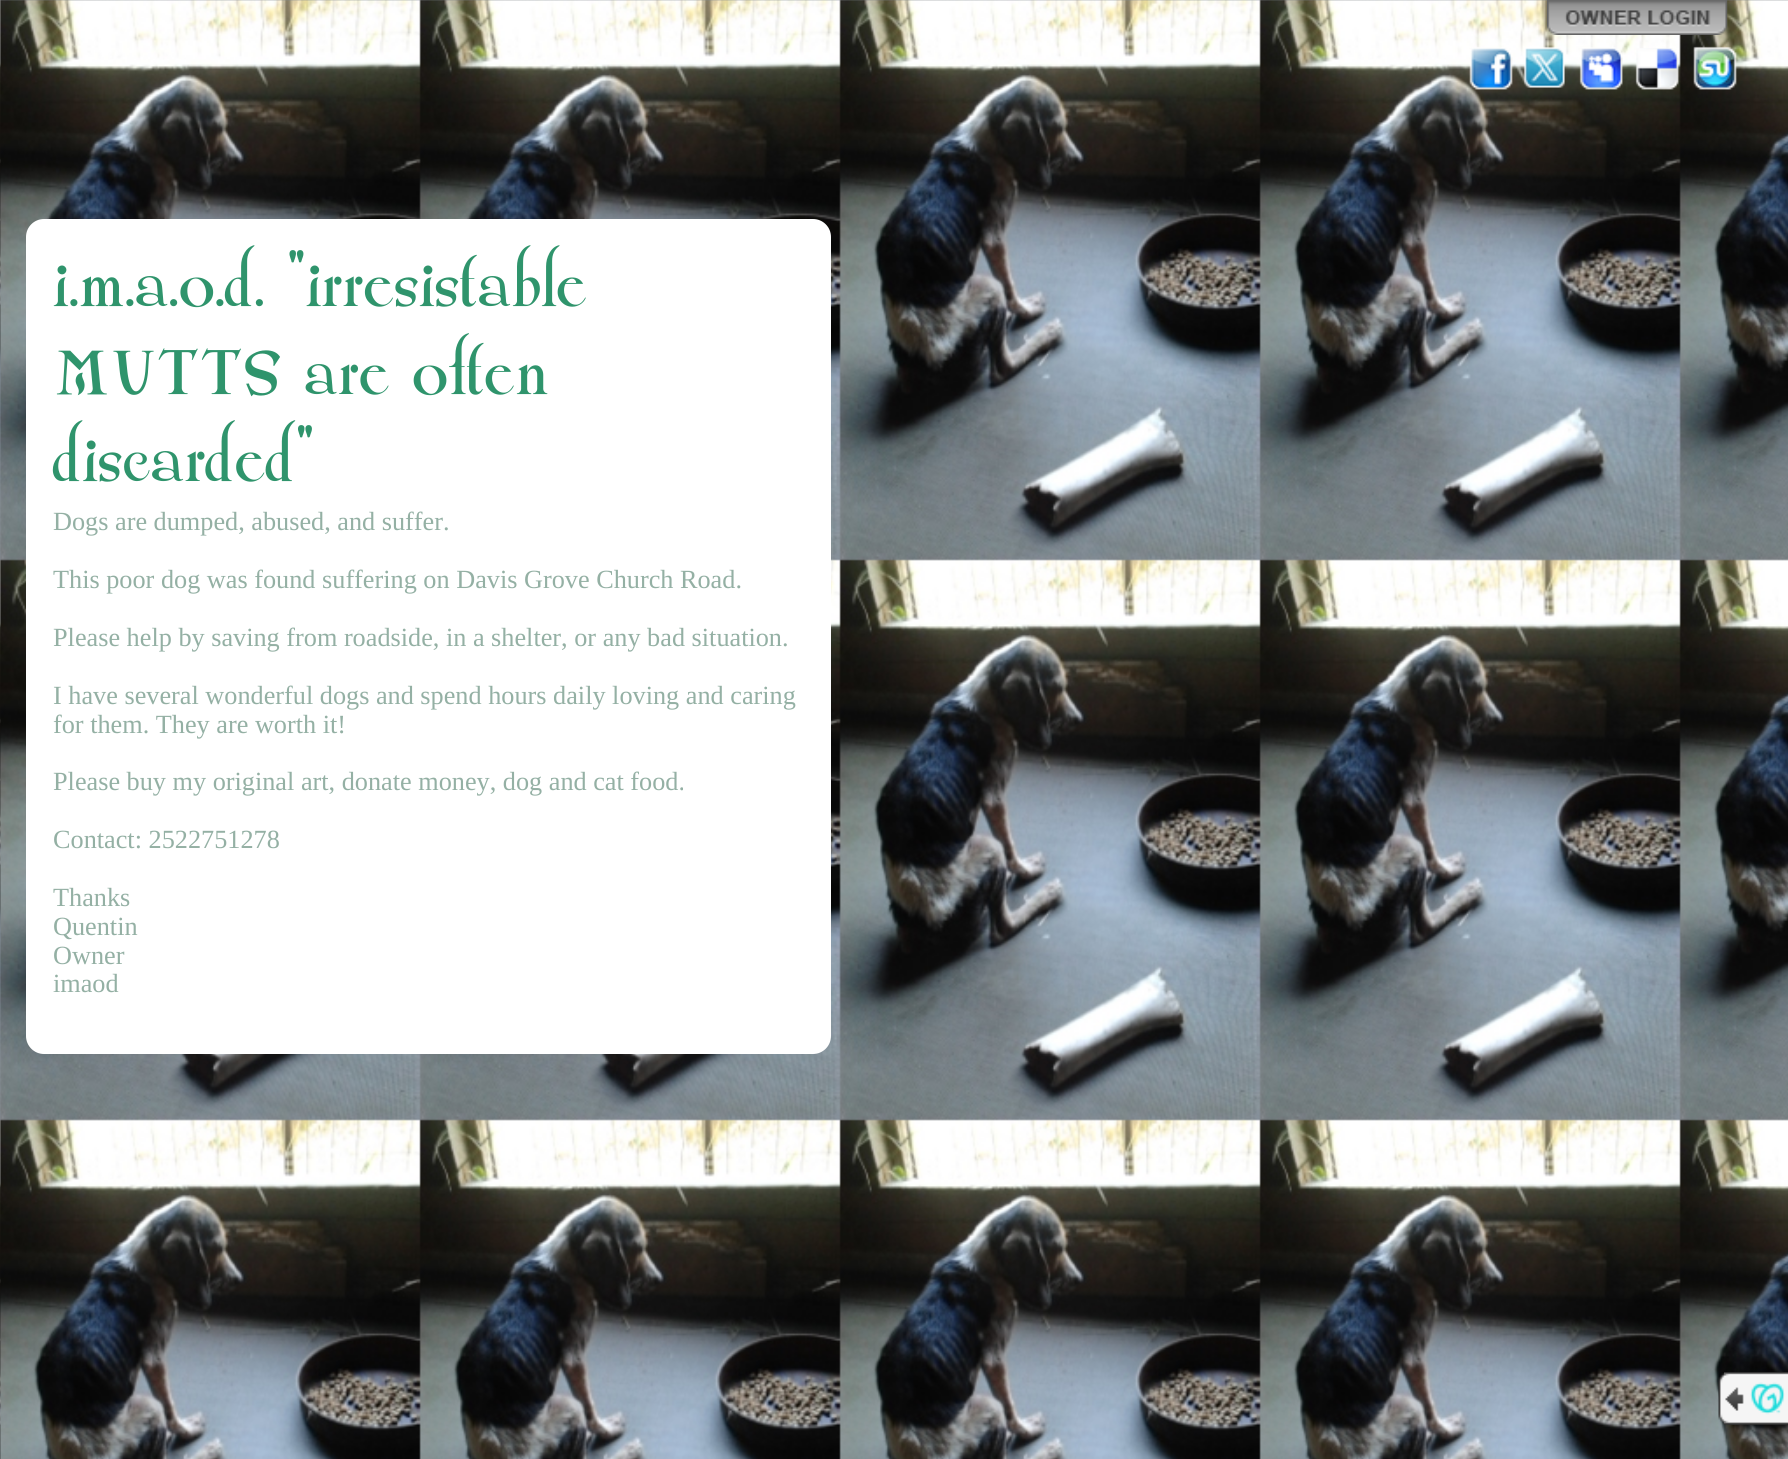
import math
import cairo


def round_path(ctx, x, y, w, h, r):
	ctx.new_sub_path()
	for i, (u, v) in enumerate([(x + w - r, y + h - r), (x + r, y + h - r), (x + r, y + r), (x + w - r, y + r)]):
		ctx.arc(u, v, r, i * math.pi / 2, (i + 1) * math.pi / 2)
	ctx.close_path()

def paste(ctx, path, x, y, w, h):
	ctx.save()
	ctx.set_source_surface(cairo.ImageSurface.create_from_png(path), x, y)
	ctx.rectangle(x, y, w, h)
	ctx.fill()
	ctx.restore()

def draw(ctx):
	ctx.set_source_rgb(1, 1, 1)
	ctx.paint()
	paste(ctx, 'media/1.png', 0, 0, 1788, 1459)
	paste(ctx, 'media/2.png', 1547, 0, 181, 35)
	paste(ctx, 'media/3.png', 1469, 47, 44, 43)
	paste(ctx, 'media/4.png', 1523, 46, 42, 42)
	paste(ctx, 'media/5.png', 1579, 47, 44, 43)
	paste(ctx, 'media/6.png', 1635, 48, 44, 42)
	paste(ctx, 'media/7.png', 1693, 46, 44, 44)
	ctx.set_source_rgb(1, 1, 1)
	round_path(ctx, 26, 219, 805, 835, 18)
	ctx.fill()
	ctx.select_font_face('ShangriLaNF')
	ctx.set_font_size(87.5)
	ctx.set_source_rgb(0.184, 0.58, 0.424)
	for x, y, s in [
		(53, 306, 'i.m.a.o.d. "irresistable'),
		(53, 394, 'MUTTS are often'),
		(53, 481, 'discarded"'),
	]:
		ctx.move_to(x, y)
		ctx.show_text(s)
	ctx.select_font_face('Liberation Serif')
	ctx.set_font_size(26.25)
	ctx.set_source_rgb(0.58, 0.69, 0.643)
	for x, y, s in [
		(53, 530, 'Dogs are dumped, abused, and suffer.'),
		(53, 588, 'This poor dog was found suffering on Davis Grove Church Road.'),
		(53, 646, 'Please help by saving from roadside, in a shelter, or any bad situation.'),
		(53, 704, 'I have several wonderful dogs and spend hours daily loving and caring'),
		(53, 733, 'for them. They are worth it!'),
		(53, 790, 'Please buy my original art, donate money, dog and cat food.'),
		(53, 848, 'Contact: 2522751278'),
		(53, 906, 'Thanks'),
		(53, 935, 'Quentin'),
		(53, 964, 'Owner'),
		(53, 992, 'imaod'),
	]:
		ctx.move_to(x, y)
		ctx.show_text(s)
	paste(ctx, 'media/8.png', 1724, 1372, 64, 53)
	ctx.set_source_rgba(0.204, 0.204, 0.204, 0.5)
	ctx.rectangle(1730, 1424, 57, 1)
	ctx.fill()
	paste(ctx, 'media/9.png', 1718, 1373, 26, 52)
	paste(ctx, 'media/10.png', 1750, 1382, 35, 33)


surface = cairo.ImageSurface(cairo.FORMAT_RGB24, 1788, 1459)
ctx = cairo.Context(surface)
options = cairo.FontOptions()
options.set_hint_metrics(cairo.HINT_METRICS_OFF)
options.set_hint_style(cairo.HINT_STYLE_NONE)
ctx.set_font_options(options)
ctx.set_miter_limit(4)
draw(ctx)
surface.write_to_png('image.png')
